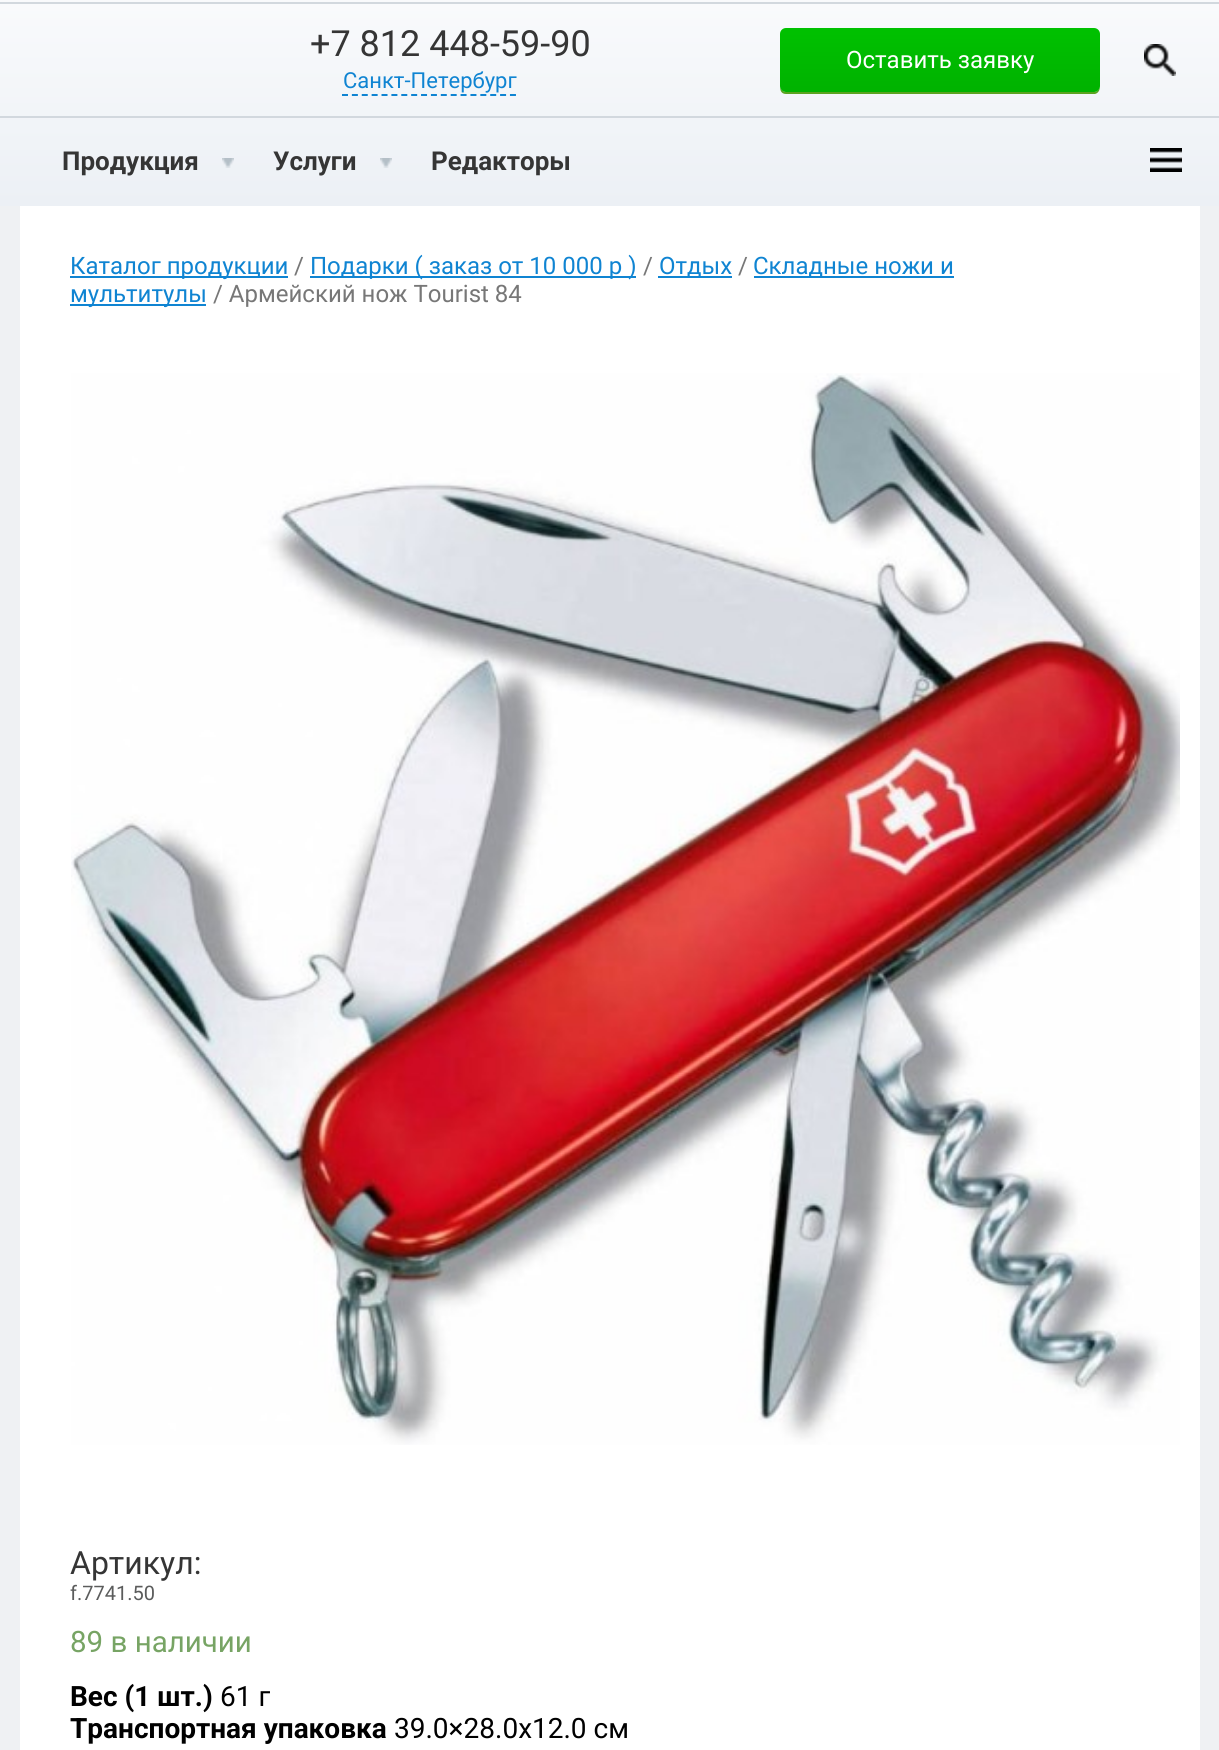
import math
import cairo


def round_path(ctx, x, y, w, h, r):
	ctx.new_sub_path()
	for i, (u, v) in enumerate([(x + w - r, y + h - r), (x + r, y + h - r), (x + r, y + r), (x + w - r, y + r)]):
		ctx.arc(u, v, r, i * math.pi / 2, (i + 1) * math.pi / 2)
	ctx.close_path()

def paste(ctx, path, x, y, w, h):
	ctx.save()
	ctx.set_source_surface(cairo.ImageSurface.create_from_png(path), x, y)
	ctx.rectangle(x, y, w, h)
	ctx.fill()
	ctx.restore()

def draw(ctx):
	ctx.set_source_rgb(1, 1, 1)
	ctx.paint()
	gradient = cairo.LinearGradient(610, -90, 610, 206)
	gradient.add_color_stop_rgba(0, 1, 1, 1, 1)
	gradient.add_color_stop_rgba(1, 0.925, 0.941, 0.961, 1)
	ctx.set_source(gradient)
	ctx.rectangle(0, 0, 1219, 206)
	ctx.fill()
	ctx.set_source_rgb(0.824, 0.847, 0.871)
	ctx.rectangle(0, 2, 1219, 2)
	ctx.fill()
	ctx.rectangle(0, 116, 1219, 2)
	ctx.fill()
	ctx.select_font_face('Roboto')
	ctx.set_font_size(36)
	ctx.set_source_rgb(0.208, 0.208, 0.208)
	ctx.move_to(310, 56)
	ctx.show_text('+7 812 448-59-90')
	ctx.set_font_size(22)
	ctx.set_source_rgb(0.059, 0.518, 0.824)
	ctx.move_to(343, 88)
	ctx.show_text('Санкт-Петербург')
	ctx.new_path()
	ctx.move_to(342, 95)
	ctx.line_to(516, 95)
	ctx.set_dash([6, 3.88])
	ctx.stroke()
	ctx.set_source_rgb(0.357, 0.639, 0.125)
	ctx.new_path()
	ctx.move_to(780, 86)
	ctx.curve_to(780, 90, 781, 94, 786, 94)
	ctx.line_to(1095, 94)
	ctx.curve_to(1099, 93, 1100, 89, 1100, 86)
	ctx.curve_to(1100, 89, 1097, 92, 1094, 92)
	ctx.line_to(786, 92)
	ctx.curve_to(783, 92, 780, 89, 780, 86)
	ctx.close_path()
	ctx.fill()
	gradient = cairo.LinearGradient(940, 28, 940, 92)
	gradient.add_color_stop_rgba(0, 0, 0.757, 0, 1)
	gradient.add_color_stop_rgba(1, 0, 0.698, 0, 1)
	ctx.set_source(gradient)
	round_path(ctx, 780, 28, 320, 64, 6)
	ctx.fill()
	ctx.set_font_size(24)
	ctx.set_source_rgb(1, 1, 1)
	ctx.move_to(846, 68)
	ctx.show_text('Оставить заявку')
	paste(ctx, 'media/1.png', 1144, 44, 32, 32)
	ctx.select_font_face('Roboto', cairo.FONT_SLANT_NORMAL, cairo.FONT_WEIGHT_BOLD)
	ctx.set_font_size(26)
	ctx.set_source_rgb(0.208, 0.208, 0.208)
	ctx.move_to(62, 170)
	ctx.show_text('Продукция')
	paste(ctx, 'media/2.png', 222, 158, 12, 10)
	ctx.move_to(273, 170)
	ctx.show_text('Услуги')
	paste(ctx, 'media/2.png', 380, 158, 12, 10)
	ctx.move_to(431, 170)
	ctx.show_text('Редакторы')
	paste(ctx, 'media/3.png', 1150, 148, 32, 24)
	ctx.set_source_rgb(0.937, 0.945, 0.953)
	ctx.rectangle(0, 206, 1219, 1544)
	ctx.fill()
	ctx.set_source_rgb(1, 1, 1)
	ctx.rectangle(20, 206, 1180, 1544)
	ctx.fill()
	ctx.set_source_rgb(0.059, 0.518, 0.824)
	ctx.rectangle(70, 276, 218, 2)
	ctx.fill()
	ctx.select_font_face('Roboto')
	ctx.set_font_size(24)
	ctx.move_to(70, 274)
	ctx.show_text('Каталог продукции')
	ctx.set_source_rgb(0.467, 0.467, 0.467)
	ctx.move_to(294, 274)
	ctx.show_text('/')
	ctx.set_source_rgb(0.059, 0.518, 0.824)
	ctx.rectangle(310, 276, 326, 2)
	ctx.fill()
	ctx.move_to(310, 274)
	ctx.show_text('Подарки ( заказ от 10 000 р )')
	ctx.set_source_rgb(0.467, 0.467, 0.467)
	ctx.move_to(643, 274)
	ctx.show_text('/')
	ctx.set_source_rgb(0.059, 0.518, 0.824)
	ctx.rectangle(658, 276, 74, 2)
	ctx.fill()
	ctx.move_to(659, 274)
	ctx.show_text('Отдых')
	ctx.set_source_rgb(0.467, 0.467, 0.467)
	ctx.move_to(738, 274)
	ctx.show_text('/')
	ctx.set_source_rgb(0.059, 0.518, 0.824)
	ctx.rectangle(754, 276, 200, 2)
	ctx.fill()
	ctx.move_to(753, 274)
	ctx.show_text('Складные ножи и')
	ctx.rectangle(70, 304, 136, 2)
	ctx.fill()
	ctx.move_to(70, 302)
	ctx.show_text('мультитулы')
	ctx.set_source_rgb(0.467, 0.467, 0.467)
	ctx.move_to(213, 302)
	ctx.show_text('/ Армейский нож Tourist 84')
	paste(ctx, 'media/4.png', 71, 373, 1109, 1072)
	ctx.set_font_size(32)
	ctx.set_source_rgb(0.208, 0.208, 0.208)
	ctx.move_to(70, 1574)
	ctx.show_text('Артикул:')
	ctx.set_font_size(20)
	ctx.set_source_rgb(0.357, 0.361, 0.361)
	ctx.move_to(70, 1600)
	ctx.show_text('f.7741.50')
	ctx.set_font_size(29.5)
	ctx.set_source_rgb(0.467, 0.643, 0.392)
	ctx.move_to(70, 1652)
	ctx.show_text('89 в наличии')
	ctx.select_font_face('Roboto', cairo.FONT_SLANT_NORMAL, cairo.FONT_WEIGHT_BOLD)
	ctx.set_font_size(28)
	ctx.set_source_rgb(0, 0, 0)
	ctx.move_to(70, 1706)
	ctx.show_text('Вес (1 шт.)')
	ctx.select_font_face('Roboto')
	ctx.move_to(220, 1706)
	ctx.show_text('61 г')
	ctx.select_font_face('Roboto', cairo.FONT_SLANT_NORMAL, cairo.FONT_WEIGHT_BOLD)
	ctx.move_to(70, 1738)
	ctx.show_text('Транспортная упаковка')
	ctx.select_font_face('Roboto')
	ctx.move_to(394, 1738)
	ctx.show_text('39.0×28.0x12.0 см')


surface = cairo.ImageSurface(cairo.FORMAT_RGB24, 1219, 1750)
ctx = cairo.Context(surface)
options = cairo.FontOptions()
options.set_hint_metrics(cairo.HINT_METRICS_OFF)
options.set_hint_style(cairo.HINT_STYLE_NONE)
ctx.set_font_options(options)
ctx.set_miter_limit(4)
draw(ctx)
surface.write_to_png('image.png')
